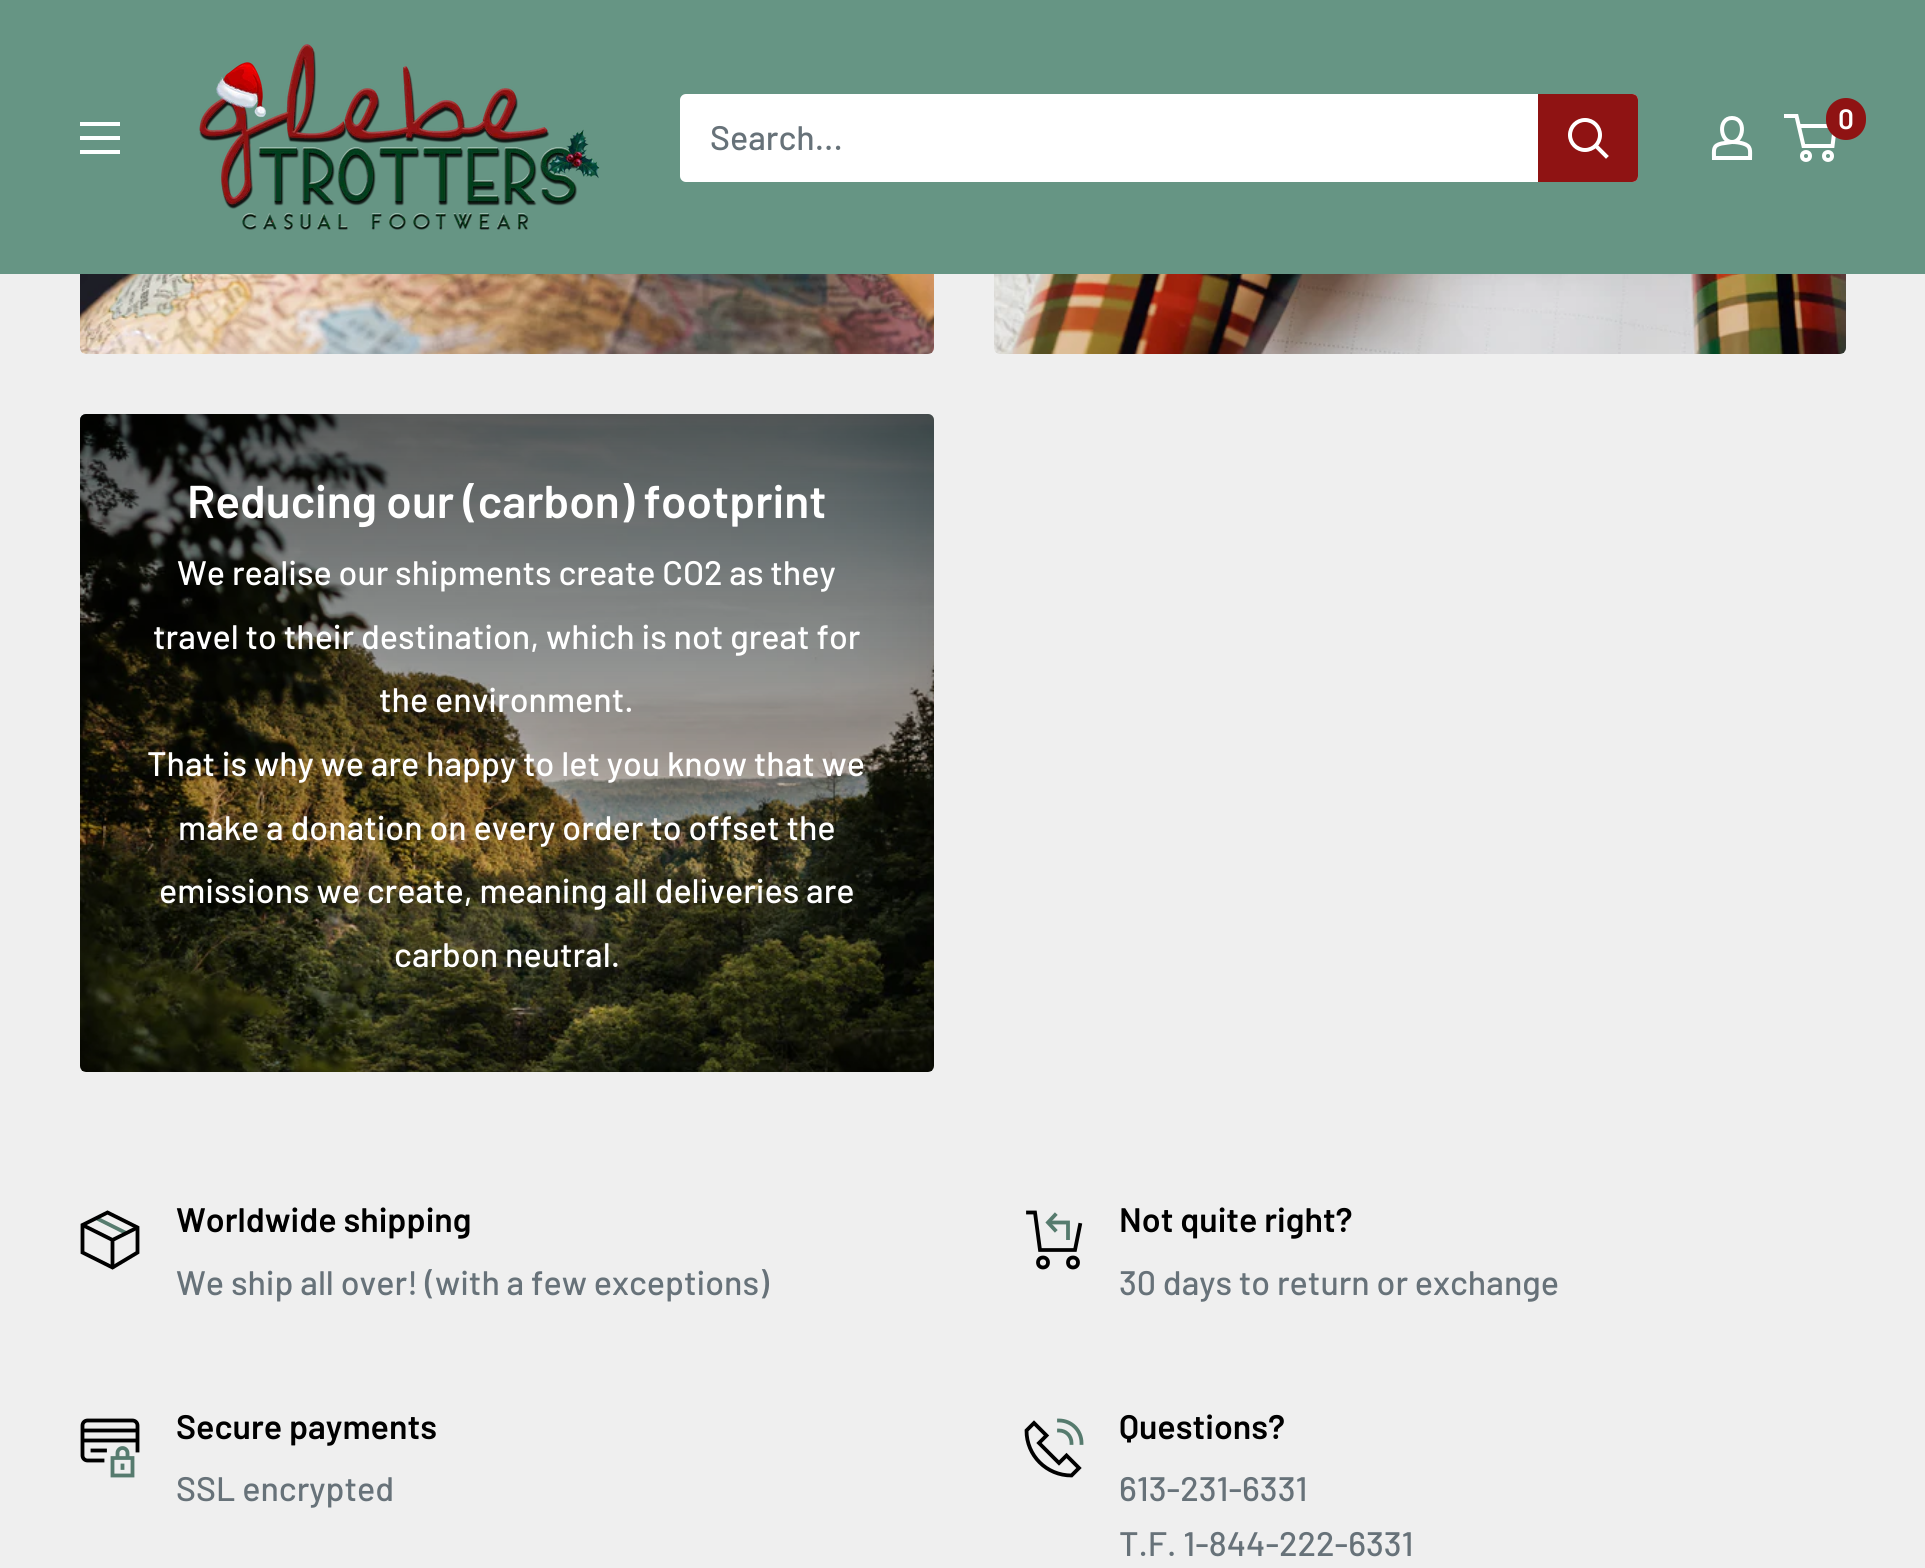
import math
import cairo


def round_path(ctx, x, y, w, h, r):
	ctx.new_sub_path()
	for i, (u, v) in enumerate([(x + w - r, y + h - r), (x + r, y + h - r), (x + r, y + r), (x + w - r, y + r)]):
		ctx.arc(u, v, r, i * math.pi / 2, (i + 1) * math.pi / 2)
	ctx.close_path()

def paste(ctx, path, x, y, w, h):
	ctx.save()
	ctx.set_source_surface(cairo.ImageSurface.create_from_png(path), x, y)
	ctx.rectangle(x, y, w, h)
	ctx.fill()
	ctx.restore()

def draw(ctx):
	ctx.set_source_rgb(0.937, 0.937, 0.937)
	ctx.paint()
	ctx.set_source_rgb(0.4, 0.584, 0.518)
	ctx.rectangle(0, 0, 1925, 274)
	ctx.fill()
	paste(ctx, 'media/1.png', 199, 44, 401, 186)
	ctx.new_path()
	ctx.move_to(1732, 142)
	ctx.curve_to(1736, 142, 1739.5, 142.5, 1743, 143.5)
	ctx.curve_to(1751.5, 146, 1750, 150.5, 1750, 158)
	ctx.line_to(1714, 158)
	ctx.curve_to(1714, 150, 1712.5, 145.5, 1721.5, 143.5)
	ctx.close_path()
	ctx.move_to(1732, 142)
	ctx.curve_to(1720, 142, 1717.5, 118, 1732, 118)
	ctx.curve_to(1746.5, 118, 1744, 142, 1732, 142)
	ctx.close_path()
	ctx.set_source_rgb(1, 1, 1)
	ctx.set_line_width(4)
	ctx.stroke()
	ctx.arc(1806, 156, 4, 0, 2 * math.pi)
	ctx.stroke()
	ctx.arc(1828, 156, 4, 0, 2 * math.pi)
	ctx.stroke()
	ctx.new_path()
	ctx.move_to(1798.5, 126)
	ctx.line_to(1835, 126)
	ctx.line_to(1832.5, 146)
	ctx.line_to(1803.5, 146)
	ctx.line_to(1796.5, 116)
	ctx.line_to(1784, 116)
	ctx.stroke()
	ctx.set_source_rgb(0.561, 0.075, 0.075)
	round_path(ctx, 1826, 98, 40, 42, 20)
	ctx.fill()
	ctx.select_font_face('Barlow SemiBold')
	ctx.set_font_size(28)
	ctx.set_source_rgb(1, 1, 1)
	ctx.move_to(1838, 129)
	ctx.show_text('0')
	ctx.set_fill_rule(cairo.FILL_RULE_EVEN_ODD)
	ctx.new_path()
	ctx.move_to(80, 150)
	ctx.line_to(120, 150)
	ctx.line_to(120, 154)
	ctx.line_to(80, 154)
	ctx.close_path()
	ctx.move_to(80, 122)
	ctx.line_to(120, 122)
	ctx.line_to(120, 126)
	ctx.line_to(80, 126)
	ctx.close_path()
	ctx.move_to(80, 136)
	ctx.line_to(120, 136)
	ctx.line_to(120, 140)
	ctx.line_to(80, 140)
	ctx.close_path()
	ctx.fill()
	round_path(ctx, 680, 94, 958, 88, 6)
	ctx.fill()
	ctx.select_font_face('Barlow Medium')
	ctx.set_font_size(34)
	ctx.set_source_rgb(0.404, 0.447, 0.475)
	ctx.move_to(710, 150)
	ctx.show_text('Search...')
	ctx.set_source_rgb(0.561, 0.075, 0.075)
	ctx.new_path()
	ctx.move_to(1538, 94)
	ctx.line_to(1632, 94)
	ctx.curve_to(1635.5, 94, 1638, 96.5, 1638, 100)
	ctx.line_to(1638, 176)
	ctx.curve_to(1638, 179.5, 1635.5, 182, 1632, 182)
	ctx.line_to(1538, 182)
	ctx.close_path()
	ctx.fill()
	ctx.new_path()
	ctx.move_to(1606, 156)
	ctx.line_to(1596, 146)
	ctx.set_source_rgb(1, 1, 1)
	ctx.set_line_cap(cairo.LINE_CAP_SQUARE)
	ctx.stroke()
	ctx.arc(1585, 135, 15, 0, 2 * math.pi)
	ctx.set_line_cap(cairo.LINE_CAP_BUTT)
	ctx.stroke()
	paste(ctx, 'media/2.png', 80, 274, 854, 80)
	paste(ctx, 'media/3.png', 994, 274, 852, 80)
	paste(ctx, 'media/4.png', 80, 414, 854, 658)
	gradient = cairo.LinearGradient(507, 1072, 507, 414)
	gradient.add_color_stop_rgba(0.15, 0, 0, 0, 0)
	gradient.add_color_stop_rgba(1, 0, 0, 0, 0.6)
	ctx.set_source(gradient)
	round_path(ctx, 80, 414, 854, 658, 6)
	ctx.fill()
	ctx.select_font_face('Barlow SemiBold')
	ctx.set_font_size(46)
	ctx.set_source_rgb(1, 1, 1)
	ctx.move_to(187, 518)
	ctx.show_text('Reducing our (carbon) footprint')
	ctx.select_font_face('Barlow Medium')
	ctx.set_font_size(34)
	for x, y, s in [
		(177, 585, 'We realise our shipments create CO2 as they'),
		(153, 649, 'travel to their destination, which is not great for'),
		(379, 712, 'the environment.'),
		(147, 776, 'That is why we are happy to let you know that we'),
		(178, 840, 'make a donation on every order to offset the'),
		(159, 903, 'emissions we create, meaning all deliveries are'),
		(394, 967, 'carbon neutral.'),
	]:
		ctx.move_to(x, y)
		ctx.show_text(s)
	ctx.new_path()
	ctx.move_to(96, 1218)
	ctx.line_to(126, 1233)
	ctx.set_source_rgb(0.337, 0.482, 0.431)
	ctx.set_line_width(3.8)
	ctx.stroke()
	ctx.new_path()
	ctx.move_to(137.5, 1227.5)
	ctx.line_to(112.5, 1240)
	ctx.line_to(82.5, 1225)
	ctx.move_to(112.5, 1240)
	ctx.line_to(112.5, 1267.5)
	ctx.set_source_rgb(0, 0, 0)
	ctx.stroke()
	ctx.new_path()
	ctx.move_to(137.5, 1227.5)
	ctx.line_to(137.5, 1252.5)
	ctx.line_to(112.5, 1267.5)
	ctx.line_to(82.5, 1252.5)
	ctx.line_to(82.5, 1225)
	ctx.line_to(107.5, 1212.5)
	ctx.close_path()
	ctx.set_line_cap(cairo.LINE_CAP_SQUARE)
	ctx.stroke()
	ctx.select_font_face('Barlow SemiBold')
	ctx.move_to(176, 1232)
	ctx.show_text('Worldwide shipping')
	ctx.select_font_face('Barlow Medium')
	ctx.set_source_rgb(0.404, 0.447, 0.475)
	ctx.move_to(176, 1295)
	ctx.show_text('We ship all over! (with a few exceptions)')
	ctx.new_path()
	ctx.move_to(1048, 1222.5)
	ctx.line_to(1068, 1222.5)
	ctx.line_to(1068, 1240)
	ctx.set_source_rgb(0.337, 0.482, 0.431)
	ctx.set_line_cap(cairo.LINE_CAP_BUTT)
	ctx.stroke()
	ctx.new_path()
	ctx.move_to(1055, 1230)
	ctx.line_to(1048, 1222.5)
	ctx.line_to(1055, 1215)
	ctx.set_line_cap(cairo.LINE_CAP_SQUARE)
	ctx.stroke()
	ctx.new_path()
	ctx.move_to(1080, 1225)
	ctx.line_to(1075, 1250)
	ctx.line_to(1040, 1250)
	ctx.line_to(1035, 1212.5)
	ctx.line_to(1028, 1212.5)
	ctx.set_source_rgb(0, 0, 0)
	ctx.stroke()
	ctx.arc(1043, 1262.5, 5, 0, 2 * math.pi)
	ctx.set_line_cap(cairo.LINE_CAP_BUTT)
	ctx.stroke()
	ctx.arc(1073, 1262.5, 5, 0, 2 * math.pi)
	ctx.stroke()
	ctx.select_font_face('Barlow SemiBold')
	ctx.move_to(1119, 1232)
	ctx.show_text('Not quite right?')
	ctx.select_font_face('Barlow Medium')
	ctx.set_source_rgb(0.404, 0.447, 0.475)
	ctx.move_to(1119, 1295)
	ctx.show_text('30 days to return or exchange')
	paste(ctx, 'media/5.png', 80, 1418, 60, 60)
	ctx.select_font_face('Barlow SemiBold')
	ctx.set_source_rgb(0, 0, 0)
	ctx.move_to(176, 1439)
	ctx.show_text('Secure payments')
	ctx.select_font_face('Barlow Medium')
	ctx.set_source_rgb(0.404, 0.447, 0.475)
	ctx.move_to(176, 1501)
	ctx.show_text('SSL encrypted')
	ctx.new_path()
	ctx.move_to(1066.5, 1455.5)
	ctx.line_to(1059, 1463)
	ctx.line_to(1039, 1443)
	ctx.line_to(1046.5, 1435.5)
	ctx.line_to(1034, 1423)
	ctx.line_to(1026.5, 1430.5)
	ctx.curve_to(1026.5, 1455.5, 1046.5, 1475.5, 1071.5, 1475.5)
	ctx.line_to(1079, 1468)
	ctx.close_path()
	ctx.set_source_rgb(0, 0, 0)
	ctx.set_line_cap(cairo.LINE_CAP_SQUARE)
	ctx.stroke()
	ctx.new_path()
	ctx.move_to(1059, 1420.5)
	ctx.curve_to(1071.5, 1420.5, 1081.5, 1430.5, 1081.5, 1443)
	ctx.move_to(1059, 1430.5)
	ctx.curve_to(1066, 1430.5, 1071.5, 1436, 1071.5, 1443)
	ctx.set_source_rgb(0.337, 0.482, 0.431)
	ctx.stroke()
	ctx.select_font_face('Barlow SemiBold')
	ctx.set_source_rgb(0, 0, 0)
	ctx.move_to(1119, 1439)
	ctx.show_text('Questions?')
	ctx.select_font_face('Barlow Medium')
	ctx.set_source_rgb(0.404, 0.447, 0.475)
	ctx.move_to(1119, 1501)
	ctx.show_text('613-231-6331')
	ctx.move_to(1119, 1556)
	ctx.show_text('T.F. 1-844-222-6331')


surface = cairo.ImageSurface(cairo.FORMAT_RGB24, 1925, 1568)
ctx = cairo.Context(surface)
options = cairo.FontOptions()
options.set_hint_metrics(cairo.HINT_METRICS_OFF)
options.set_hint_style(cairo.HINT_STYLE_NONE)
ctx.set_font_options(options)
ctx.set_miter_limit(4)
draw(ctx)
surface.write_to_png('image.png')
